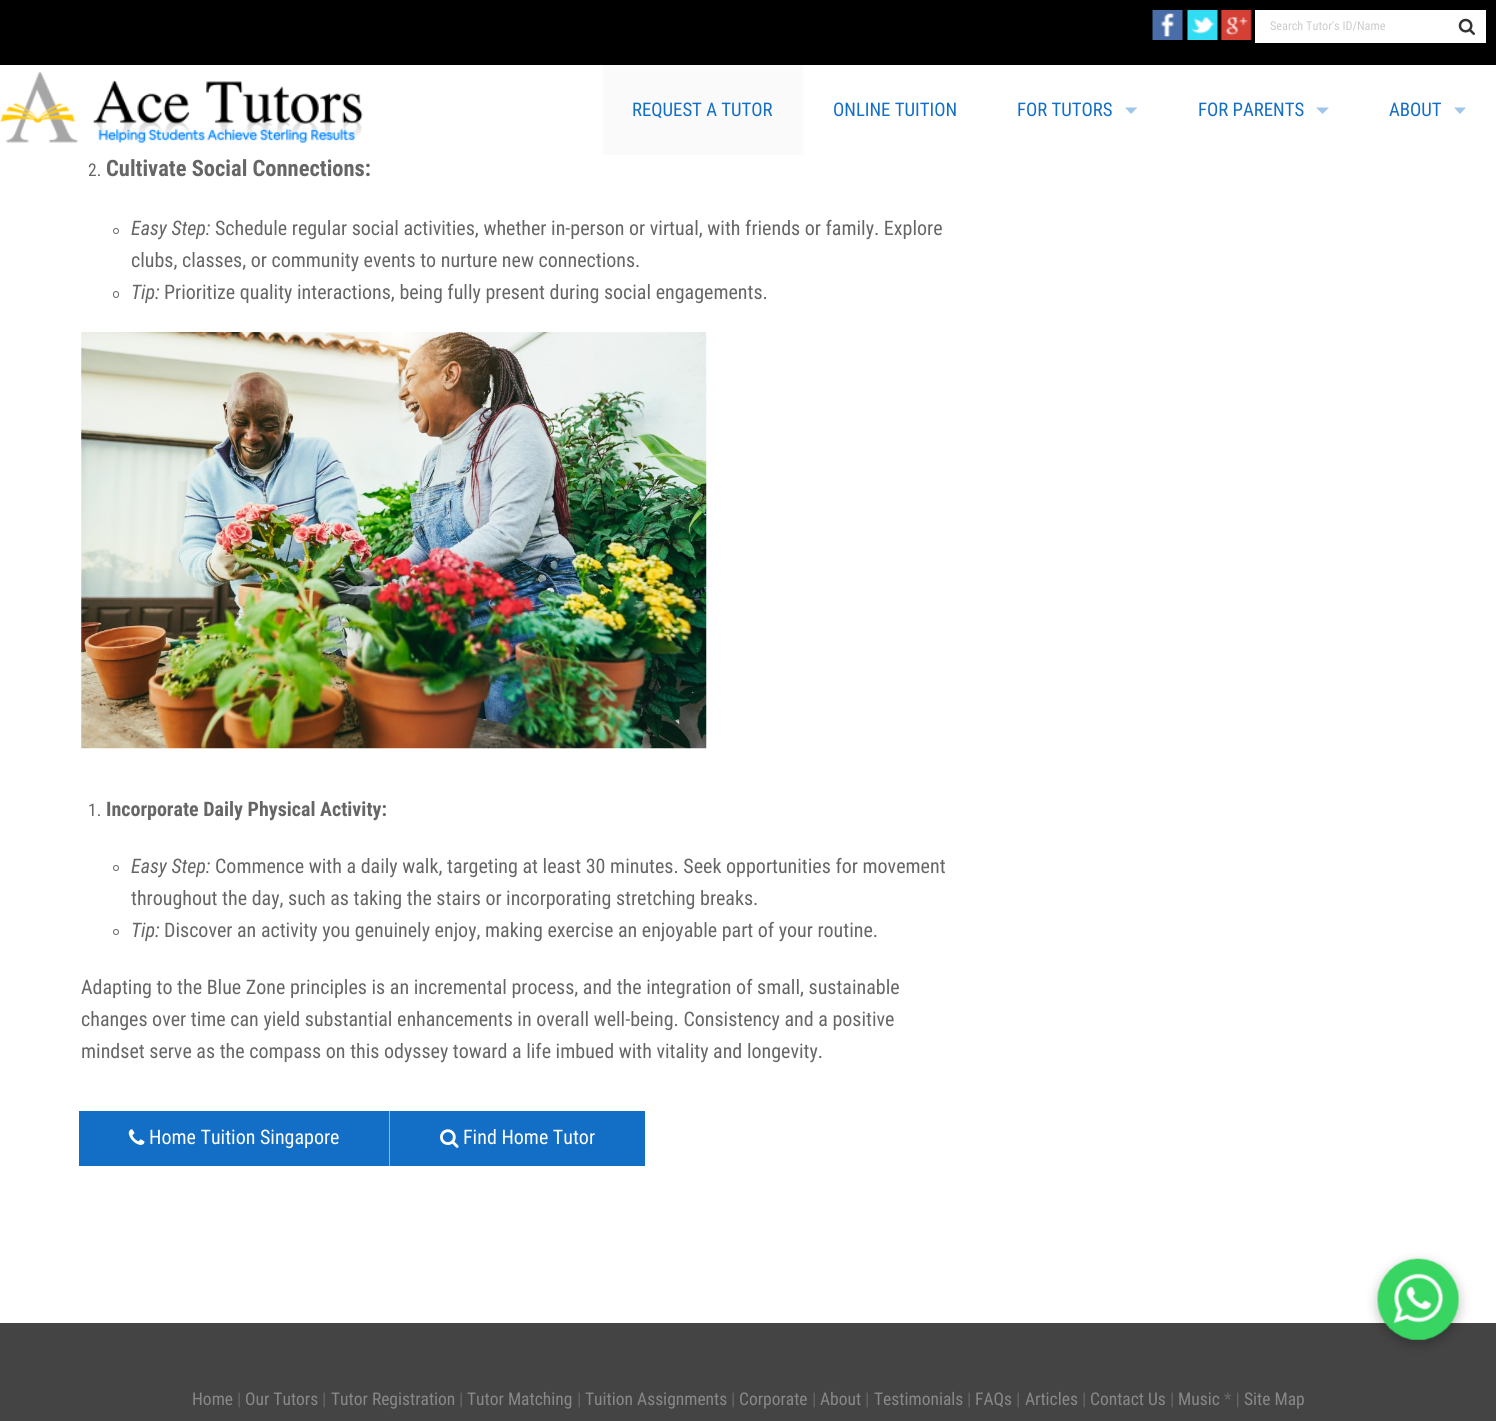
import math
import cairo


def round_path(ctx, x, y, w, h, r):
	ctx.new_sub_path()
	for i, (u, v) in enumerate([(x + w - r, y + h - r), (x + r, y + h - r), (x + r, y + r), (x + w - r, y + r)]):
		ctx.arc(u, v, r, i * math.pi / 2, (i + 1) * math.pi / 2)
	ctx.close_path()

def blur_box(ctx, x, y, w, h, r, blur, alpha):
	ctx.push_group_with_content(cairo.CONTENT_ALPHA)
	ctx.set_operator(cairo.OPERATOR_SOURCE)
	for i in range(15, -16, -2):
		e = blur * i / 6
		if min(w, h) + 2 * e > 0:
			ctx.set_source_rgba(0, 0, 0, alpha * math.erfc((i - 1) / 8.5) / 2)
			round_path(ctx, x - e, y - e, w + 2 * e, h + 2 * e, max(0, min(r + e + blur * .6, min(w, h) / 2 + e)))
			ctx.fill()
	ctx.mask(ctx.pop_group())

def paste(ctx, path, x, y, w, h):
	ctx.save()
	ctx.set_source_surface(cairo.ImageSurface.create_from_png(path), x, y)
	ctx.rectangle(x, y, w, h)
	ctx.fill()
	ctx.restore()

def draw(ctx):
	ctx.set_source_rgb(1, 1, 1)
	ctx.paint()
	ctx.set_source_rgb(0, 0, 0)
	ctx.rectangle(0, 0, 1496, 65)
	ctx.fill()
	paste(ctx, 'media/1.png', 1152, 10, 31, 30)
	paste(ctx, 'media/2.png', 1187, 10, 31, 30)
	paste(ctx, 'media/3.png', 1220, 10, 32, 30)
	ctx.set_source_rgb(1, 1, 1)
	ctx.rectangle(1255, 10, 231, 33)
	ctx.fill()
	ctx.select_font_face('Roboto Condensed')
	ctx.set_font_size(12.25)
	ctx.set_source_rgb(0.8, 0.8, 0.8)
	ctx.move_to(1270, 30)
	ctx.show_text('Search Tutor\'s ID/Name')
	paste(ctx, 'media/4.png', 1458, 18, 17, 17)
	paste(ctx, 'media/5.png', 0, 72, 363, 72)
	ctx.set_source_rgb(0.98, 0.98, 0.98)
	ctx.rectangle(603, 65, 200, 90)
	ctx.fill()
	ctx.set_font_size(18.75)
	ctx.set_source_rgb(0.075, 0.431, 0.776)
	for x, y, s in [
		(632, 116, 'REQUEST A TUTOR'),
		(833, 116, 'ONLINE TUITION'),
		(1017, 116, 'FOR TUTORS'),
	]:
		ctx.move_to(x, y)
		ctx.show_text(s)
	ctx.set_source_rgb(0.631, 0.773, 0.91)
	ctx.new_path()
	ctx.move_to(1125, 107.5)
	ctx.line_to(1137.5, 107.5)
	ctx.line_to(1131, 114)
	ctx.close_path()
	ctx.fill()
	ctx.set_source_rgb(0.075, 0.431, 0.776)
	ctx.move_to(1198, 116)
	ctx.show_text('FOR PARENTS')
	ctx.set_source_rgb(0.631, 0.773, 0.91)
	ctx.new_path()
	ctx.move_to(1316, 107.5)
	ctx.line_to(1329, 107.5)
	ctx.line_to(1322.5, 114)
	ctx.close_path()
	ctx.fill()
	ctx.set_source_rgb(0.075, 0.431, 0.776)
	ctx.move_to(1389, 116)
	ctx.show_text('ABOUT')
	ctx.set_source_rgb(0.631, 0.773, 0.91)
	ctx.new_path()
	ctx.move_to(1454, 107.5)
	ctx.line_to(1466, 107.5)
	ctx.line_to(1460, 114)
	ctx.close_path()
	ctx.fill()
	ctx.set_font_size(17.5)
	ctx.set_source_rgb(0.4, 0.4, 0.4)
	ctx.move_to(88, 176)
	ctx.show_text('2.')
	ctx.select_font_face('Roboto Condensed', cairo.FONT_SLANT_NORMAL, cairo.FONT_WEIGHT_BOLD)
	ctx.set_font_size(22.5)
	ctx.move_to(106, 176)
	ctx.show_text('Cultivate Social Connections:')
	ctx.new_path()
	ctx.arc(116, 231, 2.5, 0, 2 * math.pi)
	ctx.set_line_width(1)
	ctx.stroke()
	ctx.select_font_face('Roboto Condensed', cairo.FONT_SLANT_ITALIC)
	ctx.set_font_size(20)
	ctx.move_to(131, 235)
	ctx.show_text('Easy Step:')
	ctx.select_font_face('Roboto Condensed')
	ctx.move_to(215, 235)
	ctx.show_text('Schedule regular social activities, whether in-person or virtual, with friends or family. Explore')
	ctx.move_to(131, 267)
	ctx.show_text('clubs, classes, or community events to nurture new connections.')
	round_path(ctx, 113.5, 291.5, 5, 6, 2.5)
	ctx.stroke()
	ctx.select_font_face('Roboto Condensed', cairo.FONT_SLANT_ITALIC)
	ctx.move_to(131, 299)
	ctx.show_text('Tip:')
	ctx.select_font_face('Roboto Condensed')
	ctx.move_to(164, 299)
	ctx.show_text('Prioritize quality interactions, being fully present during social engagements.')
	paste(ctx, 'media/6.png', 81, 332, 626, 417)
	ctx.set_font_size(17.5)
	ctx.move_to(88, 816)
	ctx.show_text('1.')
	ctx.select_font_face('Roboto Condensed', cairo.FONT_SLANT_NORMAL, cairo.FONT_WEIGHT_BOLD)
	ctx.set_font_size(20)
	ctx.move_to(106, 816)
	ctx.show_text('Incorporate Daily Physical Activity:')
	ctx.new_path()
	ctx.arc(116, 868, 2.5, 0, 2 * math.pi)
	ctx.stroke()
	ctx.select_font_face('Roboto Condensed', cairo.FONT_SLANT_ITALIC)
	ctx.move_to(131, 873)
	ctx.show_text('Easy Step:')
	ctx.select_font_face('Roboto Condensed')
	ctx.move_to(215, 873)
	ctx.show_text('Commence with a daily walk, targeting at least 30 minutes. Seek opportunities for movement')
	ctx.move_to(131, 905)
	ctx.show_text('throughout the day, such as taking the stairs or incorporating stretching breaks.')
	ctx.new_path()
	ctx.arc(116, 932, 2.5, 0, 2 * math.pi)
	ctx.stroke()
	ctx.select_font_face('Roboto Condensed', cairo.FONT_SLANT_ITALIC)
	ctx.move_to(131, 937)
	ctx.show_text('Tip:')
	ctx.select_font_face('Roboto Condensed')
	for x, y, s in [
		(164, 937, 'Discover an activity you genuinely enjoy, making exercise an enjoyable part of your routine.'),
		(81, 994, 'Adapting to the Blue Zone principles is an incremental process, and the integration of small, sustainable'),
		(81, 1026, 'changes over time can yield substantial enhancements in overall well-being. Consistency and a positive'),
		(81, 1058, 'mindset serve as the compass on this odyssey toward a life imbued with vitality and longevity.'),
	]:
		ctx.move_to(x, y)
		ctx.show_text(s)
	ctx.set_source_rgb(0.075, 0.431, 0.776)
	ctx.rectangle(79, 1111, 310, 55)
	ctx.fill()
	paste(ctx, 'media/7.png', 128, 1129, 17, 16)
	ctx.set_source_rgb(1, 1, 1)
	ctx.move_to(149, 1144)
	ctx.show_text('Home Tuition Singapore')
	ctx.set_source_rgb(0.075, 0.431, 0.776)
	ctx.rectangle(390, 1111, 255, 55)
	ctx.fill()
	ctx.set_source_rgb(0.537, 0.718, 0.89)
	ctx.rectangle(389, 1111, 1, 55)
	ctx.fill()
	paste(ctx, 'media/8.png', 440, 1129, 19, 19)
	ctx.set_source_rgb(1, 1, 1)
	ctx.move_to(463, 1144)
	ctx.show_text('Find Home Tutor')
	ctx.set_source_rgb(0.267, 0.267, 0.267)
	ctx.rectangle(0, 1323, 1496, 98)
	ctx.fill()
	ctx.set_font_size(17.5)
	ctx.set_source_rgb(0.533, 0.533, 0.533)
	ctx.move_to(192, 1405)
	ctx.show_text('Home')
	ctx.set_source_rgb(0.4, 0.4, 0.4)
	ctx.move_to(237, 1405)
	ctx.show_text('|')
	ctx.set_source_rgb(0.533, 0.533, 0.533)
	ctx.move_to(245, 1405)
	ctx.show_text('Our Tutors')
	ctx.set_source_rgb(0.4, 0.4, 0.4)
	ctx.move_to(322, 1405)
	ctx.show_text('|')
	ctx.set_source_rgb(0.533, 0.533, 0.533)
	ctx.move_to(331, 1405)
	ctx.show_text('Tutor Registration')
	ctx.set_source_rgb(0.4, 0.4, 0.4)
	ctx.move_to(459, 1405)
	ctx.show_text('|')
	ctx.set_source_rgb(0.533, 0.533, 0.533)
	ctx.move_to(467, 1405)
	ctx.show_text('Tutor Matching')
	ctx.set_source_rgb(0.4, 0.4, 0.4)
	ctx.move_to(577, 1405)
	ctx.show_text('|')
	ctx.set_source_rgb(0.533, 0.533, 0.533)
	ctx.move_to(585, 1405)
	ctx.show_text('Tuition Assignments')
	ctx.set_source_rgb(0.4, 0.4, 0.4)
	ctx.move_to(731, 1405)
	ctx.show_text('|')
	ctx.set_source_rgb(0.533, 0.533, 0.533)
	ctx.move_to(739, 1405)
	ctx.show_text('Corporate')
	ctx.set_source_rgb(0.4, 0.4, 0.4)
	ctx.move_to(812, 1405)
	ctx.show_text('|')
	ctx.set_source_rgb(0.533, 0.533, 0.533)
	ctx.move_to(820, 1405)
	ctx.show_text('About')
	ctx.set_source_rgb(0.4, 0.4, 0.4)
	ctx.move_to(865, 1405)
	ctx.show_text('|')
	ctx.set_source_rgb(0.533, 0.533, 0.533)
	ctx.move_to(874, 1405)
	ctx.show_text('Testimonials')
	ctx.set_source_rgb(0.4, 0.4, 0.4)
	ctx.move_to(967, 1405)
	ctx.show_text('|')
	ctx.set_source_rgb(0.533, 0.533, 0.533)
	ctx.move_to(975, 1405)
	ctx.show_text('FAQs')
	ctx.set_source_rgb(0.4, 0.4, 0.4)
	ctx.move_to(1016, 1405)
	ctx.show_text('|')
	ctx.set_source_rgb(0.533, 0.533, 0.533)
	ctx.move_to(1025, 1405)
	ctx.show_text('Articles')
	ctx.set_source_rgb(0.4, 0.4, 0.4)
	ctx.move_to(1082, 1405)
	ctx.show_text('|')
	ctx.set_source_rgb(0.533, 0.533, 0.533)
	ctx.move_to(1090, 1405)
	ctx.show_text('Contact Us')
	ctx.set_source_rgb(0.4, 0.4, 0.4)
	ctx.move_to(1170, 1405)
	ctx.show_text('|')
	ctx.set_source_rgb(0.533, 0.533, 0.533)
	ctx.move_to(1178, 1405)
	ctx.show_text('Music')
	ctx.set_source_rgb(0.4, 0.4, 0.4)
	ctx.move_to(1224, 1405)
	ctx.show_text('* |')
	ctx.set_source_rgb(0.533, 0.533, 0.533)
	ctx.move_to(1244, 1405)
	ctx.show_text('Site Map')
	ctx.set_source_rgb(0, 0, 0)
	blur_box(ctx, 1378, 1263, 81, 81, 40.5, 6, 0.25)
	paste(ctx, 'media/9.png', 1377, 1258, 83, 83)


surface = cairo.ImageSurface(cairo.FORMAT_RGB24, 1496, 1421)
ctx = cairo.Context(surface)
options = cairo.FontOptions()
options.set_hint_metrics(cairo.HINT_METRICS_OFF)
options.set_hint_style(cairo.HINT_STYLE_NONE)
ctx.set_font_options(options)
ctx.set_miter_limit(4)
draw(ctx)
surface.write_to_png('image.png')
